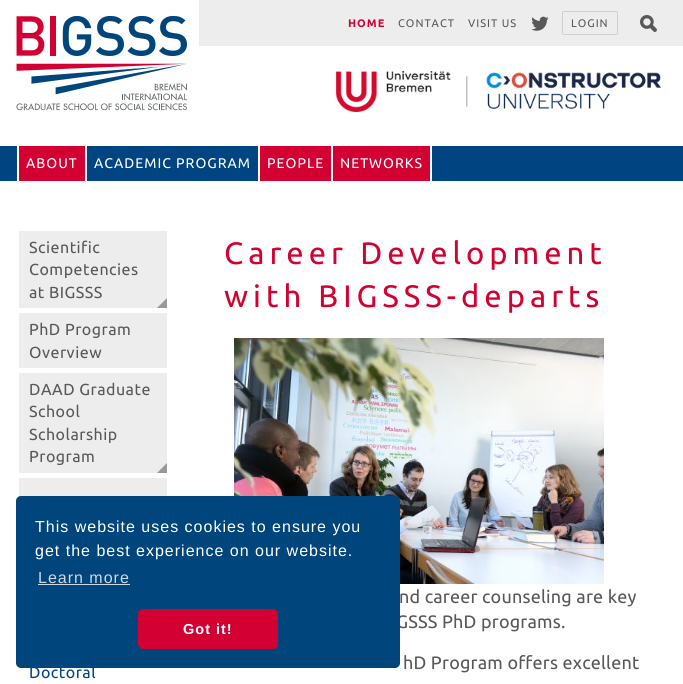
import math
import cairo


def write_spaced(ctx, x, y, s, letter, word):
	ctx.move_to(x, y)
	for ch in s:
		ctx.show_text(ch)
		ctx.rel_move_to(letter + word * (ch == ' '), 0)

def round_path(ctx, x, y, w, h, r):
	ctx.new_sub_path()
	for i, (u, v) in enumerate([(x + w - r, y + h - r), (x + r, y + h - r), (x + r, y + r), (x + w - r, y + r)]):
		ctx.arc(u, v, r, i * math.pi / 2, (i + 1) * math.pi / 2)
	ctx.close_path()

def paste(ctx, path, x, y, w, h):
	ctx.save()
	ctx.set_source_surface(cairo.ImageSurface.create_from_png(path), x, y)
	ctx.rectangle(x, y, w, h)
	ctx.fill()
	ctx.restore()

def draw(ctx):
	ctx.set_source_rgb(1, 1, 1)
	ctx.paint()
	paste(ctx, 'media/1.png', 16, 16, 171, 95)
	paste(ctx, 'media/2.png', 335, 71, 326, 41)
	ctx.set_source_rgb(0.929, 0.929, 0.929)
	ctx.rectangle(199, 0, 484, 46)
	ctx.fill()
	ctx.select_font_face('Ubuntu', cairo.FONT_SLANT_NORMAL, cairo.FONT_WEIGHT_BOLD)
	ctx.set_font_size(11)
	ctx.set_source_rgb(0.827, 0.004, 0.196)
	write_spaced(ctx, 348, 27, 'HOME', 1, 0)
	ctx.select_font_face('Ubuntu')
	ctx.set_source_rgb(0.345, 0.345, 0.353)
	write_spaced(ctx, 398, 27, 'CONTACT', 1, 0)
	write_spaced(ctx, 468, 27, 'VISIT US', 1, 0)
	paste(ctx, 'media/3.png', 531, 16, 18, 15)
	round_path(ctx, 562.5, 11.5, 55, 23, 1.5)
	ctx.set_source_rgb(0.812, 0.812, 0.816)
	ctx.set_line_width(1)
	ctx.stroke()
	ctx.set_source_rgb(0.345, 0.345, 0.353)
	write_spaced(ctx, 571, 27, 'LOGIN', 1, 0)
	paste(ctx, 'media/4.png', 640, 15, 17, 17)
	ctx.set_source_rgb(0, 0.267, 0.506)
	ctx.rectangle(0, 146, 683, 35)
	ctx.fill()
	ctx.set_source_rgb(1, 1, 1)
	ctx.rectangle(17, 146, 70, 35)
	ctx.fill()
	ctx.set_source_rgb(0.827, 0.004, 0.196)
	ctx.rectangle(19, 146, 66, 35)
	ctx.fill()
	ctx.set_font_size(14)
	ctx.set_source_rgb(1, 1, 1)
	write_spaced(ctx, 26, 168, 'ABOUT', 1, 0)
	ctx.rectangle(258, 146, 2, 35)
	ctx.fill()
	write_spaced(ctx, 94, 168, 'ACADEMIC PROGRAM', 1, 0)
	ctx.rectangle(331, 146, 2, 35)
	ctx.fill()
	ctx.set_source_rgb(0.827, 0.004, 0.196)
	ctx.rectangle(260, 146, 71, 35)
	ctx.fill()
	ctx.set_source_rgb(1, 1, 1)
	write_spaced(ctx, 267, 168, 'PEOPLE', 1, 0)
	ctx.rectangle(430, 146, 2, 35)
	ctx.fill()
	ctx.set_source_rgb(0.827, 0.004, 0.196)
	ctx.rectangle(333, 146, 97, 35)
	ctx.fill()
	ctx.set_source_rgb(1, 1, 1)
	write_spaced(ctx, 340, 168, 'NETWORKS', 1, 0)
	ctx.set_source_rgb(0.929, 0.929, 0.929)
	ctx.rectangle(19, 231, 148, 77)
	ctx.fill()
	ctx.set_font_size(16)
	ctx.set_source_rgb(0.345, 0.345, 0.353)
	for x, y, s in [
		(29, 253, 'Scientific'),
		(29, 275, 'Competencies'),
		(29, 298, 'at BIGSSS'),
	]:
		write_spaced(ctx, x, y, s, 0.5, 0)
	ctx.set_source_rgb(0.6, 0.6, 0.6)
	ctx.new_path()
	ctx.move_to(167, 308)
	ctx.line_to(157, 308)
	ctx.line_to(167, 298)
	ctx.close_path()
	ctx.fill()
	ctx.set_source_rgb(0.929, 0.929, 0.929)
	ctx.rectangle(19, 313, 148, 55)
	ctx.fill()
	ctx.set_source_rgb(0.345, 0.345, 0.353)
	write_spaced(ctx, 29, 335, 'PhD Program', 0.5, 0)
	write_spaced(ctx, 29, 358, 'Overview', 0.5, 0)
	ctx.set_source_rgb(0.929, 0.929, 0.929)
	ctx.rectangle(19, 373, 148, 100)
	ctx.fill()
	ctx.set_source_rgb(0.345, 0.345, 0.353)
	for x, y, s in [
		(29, 395, 'DAAD Graduate'),
		(29, 417, 'School'),
		(29, 440, 'Scholarship'),
		(29, 462, 'Program'),
	]:
		write_spaced(ctx, x, y, s, 0.5, 0)
	ctx.set_source_rgb(0.6, 0.6, 0.6)
	ctx.new_path()
	ctx.move_to(167, 473)
	ctx.line_to(157, 473)
	ctx.line_to(167, 463)
	ctx.close_path()
	ctx.fill()
	ctx.set_source_rgb(0.929, 0.929, 0.929)
	ctx.rectangle(19, 478, 148, 19)
	ctx.fill()
	ctx.set_source_rgb(0, 0.267, 0.506)
	write_spaced(ctx, 29, 678, 'Doctoral', 0.5, 0)
	ctx.set_font_size(31)
	ctx.set_source_rgb(0.827, 0.004, 0.196)
	write_spaced(ctx, 224, 264, 'Career Development', 5, 0)
	write_spaced(ctx, 224, 307, 'with BIGSSS-departs', 5, 0)
	paste(ctx, 'media/5.png', 234, 338, 370, 246)
	ctx.set_font_size(18)
	ctx.set_source_rgb(0.345, 0.345, 0.353)
	for x, y, s in [
		(399, 603, 'nd career counseling are key'),
		(396, 628, 'GSSS PhD programs.'),
		(403, 669, 'hD Program offers excellent'),
	]:
		write_spaced(ctx, x, y, s, 0.2, 0)
	ctx.set_source_rgb(0, 0.271, 0.486)
	round_path(ctx, 16, 496, 384, 172, 5)
	ctx.fill()
	ctx.select_font_face('Liberation Sans')
	ctx.set_font_size(16)
	ctx.set_source_rgb(1, 1, 1)
	write_spaced(ctx, 35, 532, 'This website uses cookies to ensure you', 1, 0)
	write_spaced(ctx, 35, 556, 'get the best experience on our website.', 1, 0)
	ctx.set_source_rgb(0.8, 0.855, 0.898)
	write_spaced(ctx, 38, 583, 'Learn more', 1, 0)
	ctx.rectangle(38, 584, 92, 1)
	ctx.fill()
	ctx.set_source_rgb(0.827, 0, 0.2)
	round_path(ctx, 138, 609, 140, 40, 5)
	ctx.fill()
	ctx.select_font_face('Liberation Sans', cairo.FONT_SLANT_NORMAL, cairo.FONT_WEIGHT_BOLD)
	ctx.set_font_size(14.5)
	ctx.set_source_rgb(1, 1, 1)
	write_spaced(ctx, 183, 634, 'Got it!', 1, 0)


surface = cairo.ImageSurface(cairo.FORMAT_RGB24, 683, 684)
ctx = cairo.Context(surface)
options = cairo.FontOptions()
options.set_hint_metrics(cairo.HINT_METRICS_OFF)
options.set_hint_style(cairo.HINT_STYLE_NONE)
ctx.set_font_options(options)
ctx.set_miter_limit(4)
draw(ctx)
surface.write_to_png('image.png')
